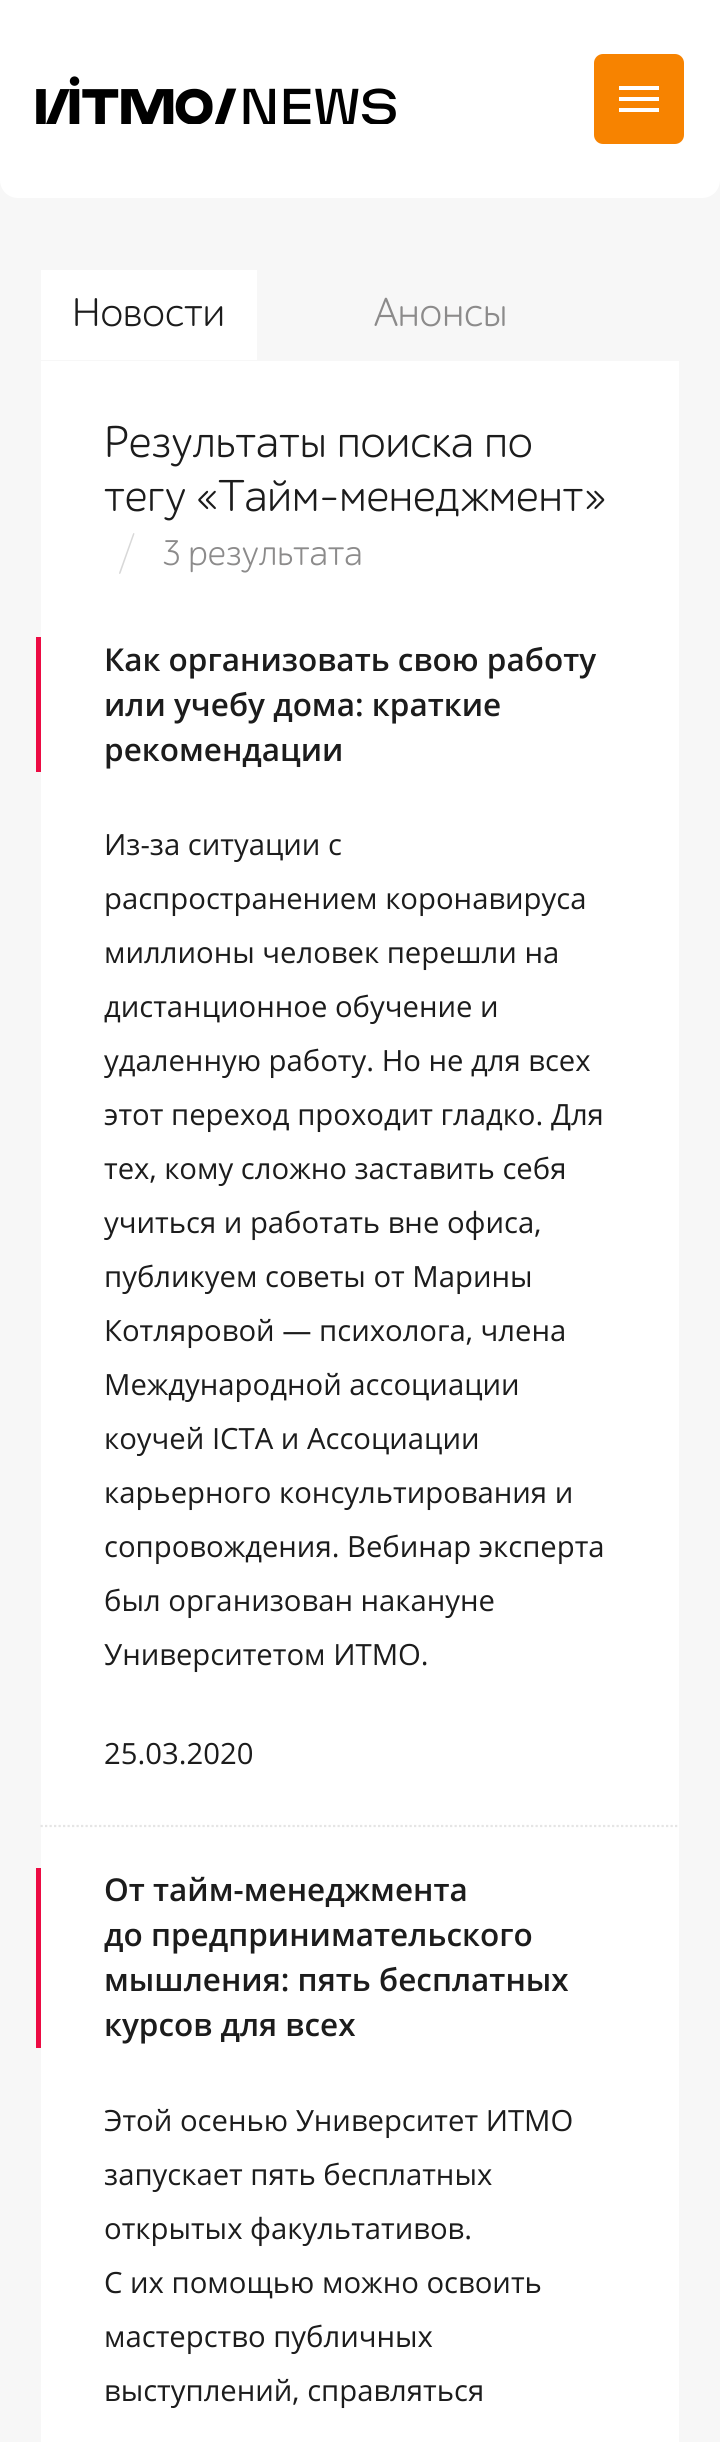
import math
import cairo


def round_path(ctx, x, y, w, h, r):
	ctx.new_sub_path()
	for i, (u, v) in enumerate([(x + w - r, y + h - r), (x + r, y + h - r), (x + r, y + r), (x + w - r, y + r)]):
		ctx.arc(u, v, r, i * math.pi / 2, (i + 1) * math.pi / 2)
	ctx.close_path()

def paste(ctx, path, x, y, w, h):
	ctx.save()
	ctx.set_source_surface(cairo.ImageSurface.create_from_png(path), x, y)
	ctx.rectangle(x, y, w, h)
	ctx.fill()
	ctx.restore()

def draw(ctx):
	ctx.set_source_rgb(0.965, 0.965, 0.965)
	ctx.paint()
	ctx.set_source_rgb(1, 1, 1)
	ctx.new_path()
	ctx.move_to(0, 0)
	ctx.line_to(720, 0)
	ctx.line_to(720, 180)
	ctx.curve_to(720, 190, 712, 198, 702, 198)
	ctx.line_to(18, 198)
	ctx.curve_to(8, 198, 0, 190, 0, 180)
	ctx.close_path()
	ctx.fill()
	paste(ctx, 'media/1.png', 36, 76, 360, 48)
	ctx.set_source_rgb(0.965, 0.514, 0)
	round_path(ctx, 594, 54, 90, 90, 9)
	ctx.fill()
	ctx.set_source_rgb(1, 1, 1)
	ctx.new_path()
	ctx.move_to(619, 112)
	ctx.line_to(659, 112)
	ctx.line_to(659, 108)
	ctx.line_to(619, 108)
	ctx.close_path()
	ctx.move_to(619, 101)
	ctx.line_to(659, 101)
	ctx.line_to(659, 97)
	ctx.line_to(619, 97)
	ctx.close_path()
	ctx.move_to(619, 86)
	ctx.line_to(619, 90)
	ctx.line_to(659, 90)
	ctx.line_to(659, 86)
	ctx.close_path()
	ctx.fill()
	ctx.rectangle(41, 270, 216, 90)
	ctx.fill()
	ctx.select_font_face('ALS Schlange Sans')
	ctx.set_font_size(40.5)
	ctx.set_source_rgb(0.11, 0.11, 0.11)
	ctx.move_to(72, 326)
	ctx.show_text('Новости')
	ctx.set_source_rgb(0.549, 0.545, 0.545)
	ctx.move_to(373, 326)
	ctx.show_text('Анонсы')
	ctx.set_source_rgb(1, 1, 1)
	ctx.rectangle(41, 361, 638, 2081)
	ctx.fill()
	ctx.set_font_size(45)
	ctx.set_source_rgb(0.11, 0.11, 0.11)
	ctx.move_to(104, 457)
	ctx.show_text('Результаты поиска по')
	ctx.move_to(104, 511)
	ctx.show_text('тегу «Тайм-менеджмент»')
	ctx.select_font_face('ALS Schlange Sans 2')
	ctx.set_source_rgb(0.847, 0.847, 0.847)
	ctx.move_to(117, 569)
	ctx.show_text('/')
	ctx.select_font_face('ALS Schlange Sans')
	ctx.set_font_size(36)
	ctx.set_source_rgb(0.549, 0.545, 0.545)
	ctx.move_to(162, 565)
	ctx.show_text('3 результата')
	ctx.set_source_rgb(0.925, 0.043, 0.263)
	ctx.rectangle(36, 637, 5, 135)
	ctx.fill()
	ctx.select_font_face('Open Sans SemiBold')
	ctx.set_font_size(31.5)
	ctx.set_source_rgb(0.11, 0.11, 0.11)
	for x, y, s in [
		(104, 671, 'Как организовать свою работу'),
		(104, 716, 'или учебу дома: краткие'),
		(104, 761, 'рекомендации'),
	]:
		ctx.move_to(x, y)
		ctx.show_text(s)
	ctx.select_font_face('Open Sans')
	ctx.set_font_size(29.25)
	for x, y, s in [
		(104, 855, 'Из-за ситуации с'),
		(104, 909, 'распространением коронавируса'),
		(104, 963, 'миллионы человек перешли на'),
		(104, 1017, 'дистанционное обучение и'),
		(104, 1071, 'удаленную работу. Но не для всех'),
		(104, 1125, 'этот переход проходит гладко. Для'),
		(104, 1179, 'тех, кому сложно заставить себя'),
		(104, 1233, 'учиться и работать вне офиса,'),
		(104, 1287, 'публикуем советы от Марины'),
		(104, 1341, 'Котляровой — психолога, члена'),
		(104, 1395, 'Международной ассоциации'),
		(104, 1449, 'коучей ICTA и Ассоциации'),
		(104, 1503, 'карьерного консультирования и'),
		(104, 1557, 'сопровождения. Вебинар эксперта'),
		(104, 1611, 'был организован накануне'),
		(104, 1665, 'Университетом ИТМО.'),
		(104, 1764, '25.03.2020'),
	]:
		ctx.move_to(x, y)
		ctx.show_text(s)
	ctx.new_path()
	ctx.move_to(40.5, 1826)
	ctx.line_to(679.5, 1826)
	ctx.set_source_rgb(0.898, 0.898, 0.898)
	ctx.set_line_width(2.2)
	ctx.set_dash([2.25, 2.25])
	ctx.stroke()
	ctx.set_source_rgb(0.925, 0.043, 0.263)
	ctx.rectangle(36, 1868, 5, 180)
	ctx.fill()
	ctx.select_font_face('Open Sans SemiBold')
	ctx.set_font_size(31.5)
	ctx.set_source_rgb(0.11, 0.11, 0.11)
	for x, y, s in [
		(104, 1901, 'От тайм-менеджмента'),
		(104, 1946, 'до предпринимательского'),
		(104, 1991, 'мышления: пять бесплатных'),
		(104, 2036, 'курсов для всех'),
	]:
		ctx.move_to(x, y)
		ctx.show_text(s)
	ctx.select_font_face('Open Sans')
	ctx.set_font_size(29.25)
	for x, y, s in [
		(104, 2131, 'Этой осенью Университет ИТМО'),
		(104, 2185, 'запускает пять бесплатных'),
		(104, 2239, 'открытых факультативов.'),
		(104, 2293, 'С их помощью можно освоить'),
		(104, 2347, 'мастерство публичных'),
		(104, 2401, 'выступлений, справляться'),
	]:
		ctx.move_to(x, y)
		ctx.show_text(s)


surface = cairo.ImageSurface(cairo.FORMAT_RGB24, 720, 2442)
ctx = cairo.Context(surface)
options = cairo.FontOptions()
options.set_hint_metrics(cairo.HINT_METRICS_OFF)
options.set_hint_style(cairo.HINT_STYLE_NONE)
ctx.set_font_options(options)
ctx.set_miter_limit(4)
draw(ctx)
surface.write_to_png('image.png')
